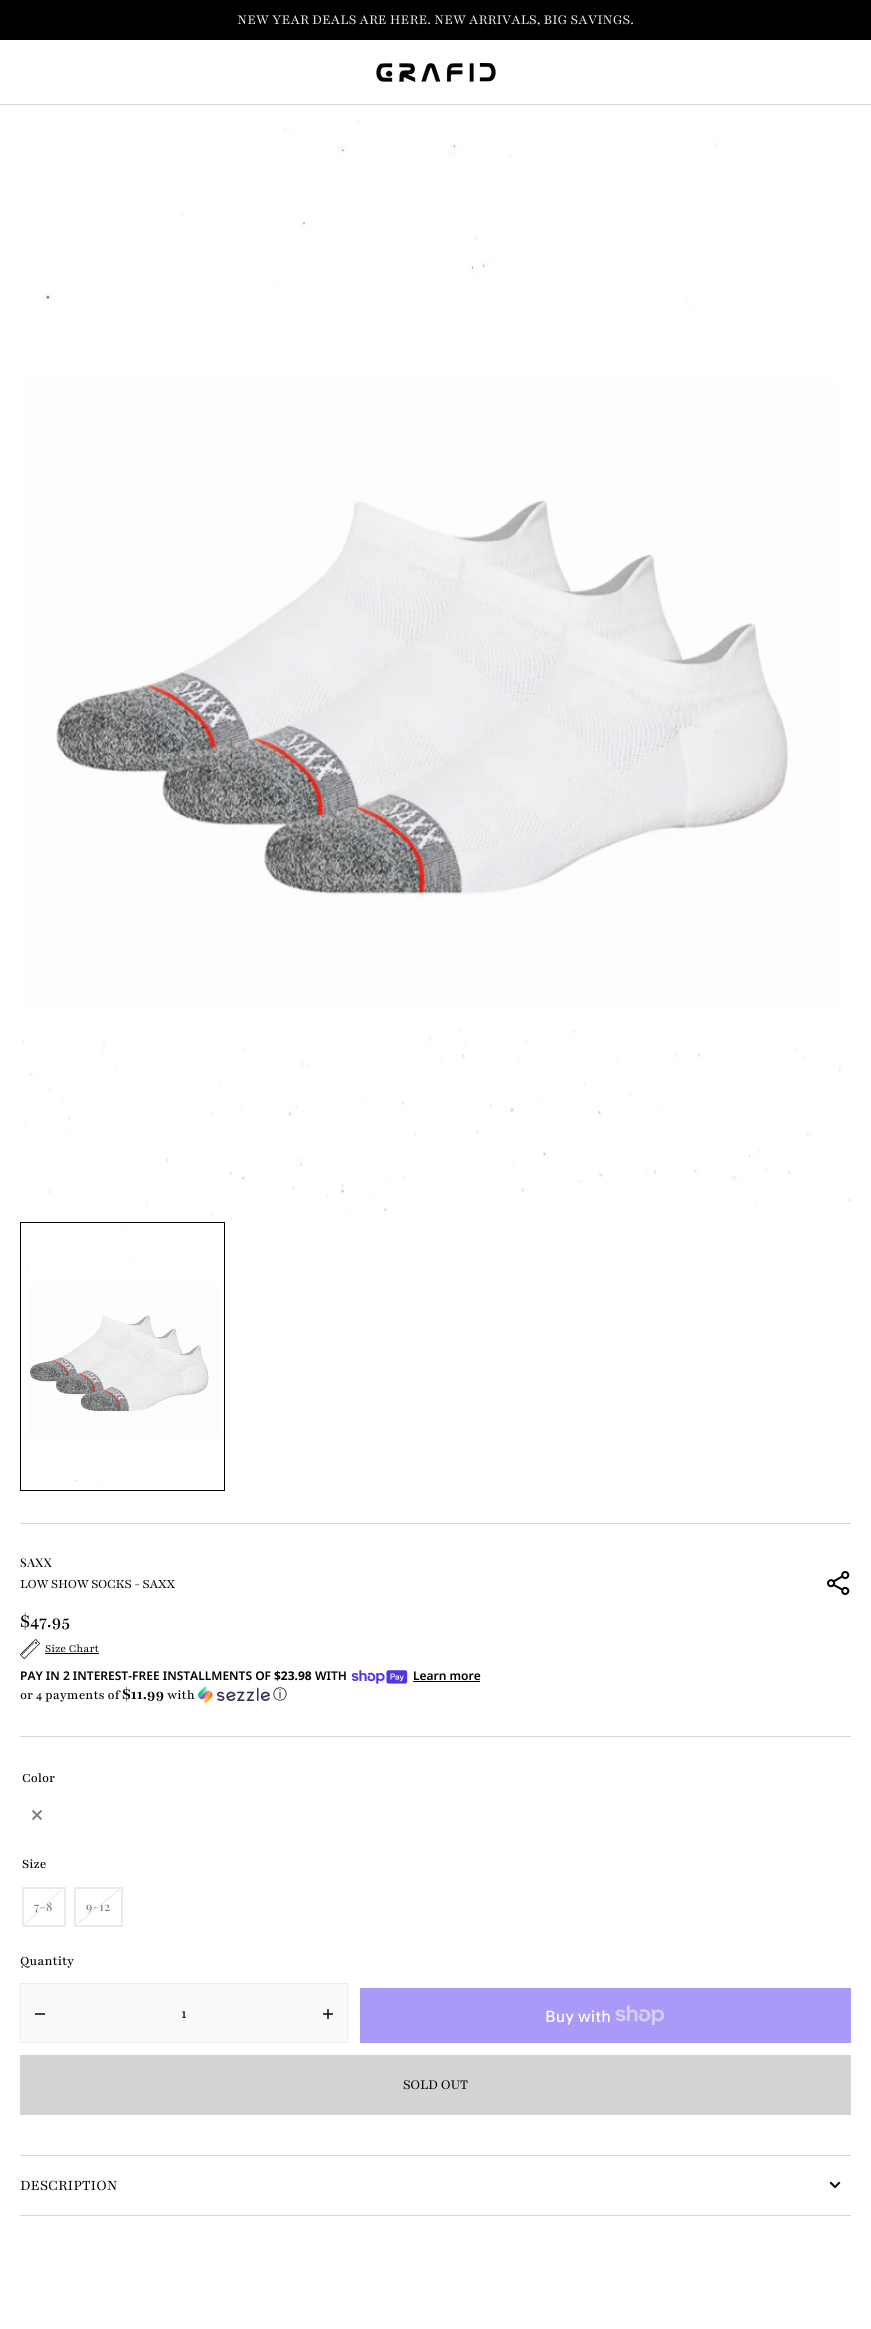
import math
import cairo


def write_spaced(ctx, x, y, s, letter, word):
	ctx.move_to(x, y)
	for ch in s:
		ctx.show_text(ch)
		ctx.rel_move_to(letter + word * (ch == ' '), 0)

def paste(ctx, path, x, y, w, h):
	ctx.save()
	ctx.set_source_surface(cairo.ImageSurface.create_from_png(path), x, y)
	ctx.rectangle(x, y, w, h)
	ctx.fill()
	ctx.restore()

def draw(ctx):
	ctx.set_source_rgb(1, 1, 1)
	ctx.paint()
	ctx.set_source_rgb(0, 0, 0)
	ctx.rectangle(0, 0, 871, 40)
	ctx.fill()
	ctx.select_font_face('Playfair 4')
	ctx.set_font_size(15)
	ctx.set_source_rgb(0.922, 0.922, 0.922)
	ctx.move_to(237, 24)
	ctx.show_text('NEW YEAR DEALS ARE HERE. NEW ARRIVALS, BIG SAVINGS.')
	ctx.set_source_rgb(0.835, 0.835, 0.835)
	ctx.rectangle(0, 104, 871, 1)
	ctx.fill()
	paste(ctx, 'media/1.png', 376, 63, 120, 19)
	paste(ctx, 'media/2.png', 22, 121, 829, 1095)
	ctx.rectangle(20.5, 1222.5, 204, 268)
	ctx.set_source_rgb(0, 0, 0)
	ctx.set_line_width(1)
	ctx.stroke()
	paste(ctx, 'media/3.png', 27, 1223, 197, 265)
	ctx.set_source_rgb(0.835, 0.835, 0.835)
	ctx.rectangle(20, 1523, 831, 1)
	ctx.fill()
	ctx.select_font_face('Playfair Display Medium')
	ctx.set_font_size(12)
	ctx.set_source_rgb(0, 0, 0)
	write_spaced(ctx, 20, 1567, 'SAXX', 0.5, 0)
	ctx.select_font_face('Playfair')
	ctx.set_font_size(14)
	write_spaced(ctx, 20, 1588, 'LOW SHOW SOCKS - SAXX', -0.25, 0)
	paste(ctx, 'media/4.png', 827, 1571, 23, 24)
	ctx.select_font_face('Playfair Medium')
	ctx.set_font_size(20)
	ctx.move_to(20, 1627)
	ctx.show_text('$47.95')
	paste(ctx, 'media/5.png', 20, 1639, 20, 20)
	ctx.select_font_face('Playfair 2')
	ctx.set_font_size(12)
	ctx.move_to(45, 1652)
	ctx.show_text('Size Chart')
	ctx.rectangle(45, 1653, 54, 1)
	ctx.fill()
	ctx.select_font_face('Noto Sans SemiBold')
	ctx.move_to(20, 1680)
	ctx.show_text('PAY IN 2 INTEREST-FREE INSTALLMENTS OF')
	ctx.select_font_face('Noto Sans', cairo.FONT_SLANT_NORMAL, cairo.FONT_WEIGHT_BOLD)
	ctx.move_to(274, 1680)
	ctx.show_text('$23.98')
	ctx.select_font_face('Noto Sans SemiBold')
	ctx.move_to(315, 1680)
	ctx.show_text('WITH')
	paste(ctx, 'media/6.png', 351, 1670, 57, 14)
	ctx.move_to(413, 1680)
	ctx.show_text('Learn more')
	ctx.rectangle(413, 1681, 67, 1)
	ctx.fill()
	ctx.select_font_face('Playfair 2 Medium')
	ctx.set_font_size(14)
	ctx.move_to(20, 1699)
	ctx.show_text('or 4 payments of')
	ctx.select_font_face('Playfair', cairo.FONT_SLANT_NORMAL, cairo.FONT_WEIGHT_BOLD)
	ctx.set_font_size(17)
	ctx.move_to(122, 1699)
	ctx.show_text('$11.99')
	ctx.select_font_face('Playfair 2 Medium')
	ctx.set_font_size(14)
	ctx.move_to(167, 1699)
	ctx.show_text('with')
	paste(ctx, 'media/7.png', 198, 1686, 72, 18)
	ctx.select_font_face('WenQuanYi Zen Hei Medium')
	ctx.move_to(273, 1699)
	ctx.show_text('ⓘ')
	ctx.set_source_rgb(0.835, 0.835, 0.835)
	ctx.rectangle(20, 1736, 831, 1)
	ctx.fill()
	ctx.select_font_face('Playfair 2 Medium')
	ctx.set_source_rgb(0, 0, 0)
	ctx.move_to(22, 1782)
	ctx.show_text('Color')
	ctx.new_path()
	ctx.move_to(32.5, 1810.5)
	ctx.line_to(41.5, 1819.5)
	ctx.move_to(41.5, 1810.5)
	ctx.line_to(32.5, 1819.5)
	ctx.set_source_rgb(0.502, 0.502, 0.502)
	ctx.set_line_width(2)
	ctx.stroke()
	ctx.set_source_rgb(0, 0, 0)
	ctx.move_to(22, 1868)
	ctx.show_text('Size')
	ctx.rectangle(23, 1888, 42, 38)
	ctx.set_source_rgb(0.918, 0.918, 0.918)
	ctx.stroke()
	ctx.select_font_face('Playfair Display Medium')
	ctx.set_font_size(12)
	ctx.set_source_rgb(0.502, 0.502, 0.502)
	write_spaced(ctx, 34, 1911, '7-8', 0.5, 0)
	ctx.set_source_rgb(0.918, 0.918, 0.918)
	ctx.new_path()
	ctx.move_to(63, 1889)
	ctx.line_to(25.5, 1924.5)
	ctx.line_to(24, 1924.5)
	ctx.line_to(61.5, 1889)
	ctx.close_path()
	ctx.fill()
	ctx.rectangle(75, 1888, 47, 38)
	ctx.stroke()
	ctx.set_source_rgb(0.502, 0.502, 0.502)
	write_spaced(ctx, 86, 1911, '9-12', 0.5, 0)
	ctx.set_source_rgb(0.918, 0.918, 0.918)
	ctx.new_path()
	ctx.move_to(76, 1924)
	ctx.line_to(119, 1889)
	ctx.line_to(121, 1889)
	ctx.line_to(77, 1925)
	ctx.close_path()
	ctx.fill()
	ctx.select_font_face('Playfair 2 Medium')
	ctx.set_font_size(14)
	ctx.set_source_rgb(0, 0, 0)
	ctx.move_to(20, 1965)
	ctx.show_text('Quantity')
	ctx.set_source_rgb(0.973, 0.973, 0.973)
	ctx.rectangle(20.5, 1983.5, 327, 59)
	ctx.fill_preserve()
	ctx.set_source_rgb(0.922, 0.922, 0.922)
	ctx.set_line_width(1)
	ctx.stroke()
	ctx.set_source_rgb(0.263, 0.263, 0.263)
	ctx.rectangle(35, 2013, 10, 2)
	ctx.fill()
	ctx.select_font_face('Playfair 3')
	ctx.set_font_size(16)
	ctx.set_source_rgb(0, 0, 0)
	ctx.move_to(181, 2018)
	ctx.show_text('1')
	paste(ctx, 'media/8.png', 323, 2009, 10, 10)
	ctx.set_source_rgb(0.667, 0.6, 0.961)
	ctx.rectangle(360, 1988, 491, 55)
	ctx.fill()
	ctx.select_font_face('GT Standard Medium')
	ctx.set_source_rgb(1, 1, 1)
	ctx.move_to(545, 2022)
	ctx.show_text('Buy with')
	paste(ctx, 'media/9.png', 615, 2005, 50, 20)
	ctx.set_source_rgb(0.827, 0.827, 0.827)
	ctx.rectangle(20, 2055, 831, 60)
	ctx.fill()
	ctx.select_font_face('Playfair 4')
	ctx.set_font_size(15)
	ctx.set_source_rgb(0, 0, 0)
	write_spaced(ctx, 403, 2089, 'SOLD OUT', -0.25, 0)
	ctx.set_source_rgb(0.835, 0.835, 0.835)
	ctx.rectangle(20, 2155, 831, 1)
	ctx.fill()
	ctx.rectangle(20, 2215, 831, 1)
	ctx.fill()
	ctx.select_font_face('Playfair 3')
	ctx.set_font_size(16)
	ctx.set_source_rgb(0, 0, 0)
	ctx.move_to(20, 2190)
	ctx.show_text('DESCRIPTION')
	ctx.new_path()
	ctx.move_to(839, 2183)
	ctx.line_to(835, 2187)
	ctx.line_to(831, 2183)
	ctx.set_line_width(2)
	ctx.set_line_cap(cairo.LINE_CAP_SQUARE)
	ctx.stroke()


surface = cairo.ImageSurface(cairo.FORMAT_RGB24, 871, 2329)
ctx = cairo.Context(surface)
options = cairo.FontOptions()
options.set_hint_metrics(cairo.HINT_METRICS_OFF)
options.set_hint_style(cairo.HINT_STYLE_NONE)
ctx.set_font_options(options)
ctx.set_miter_limit(4)
draw(ctx)
surface.write_to_png('image.png')
